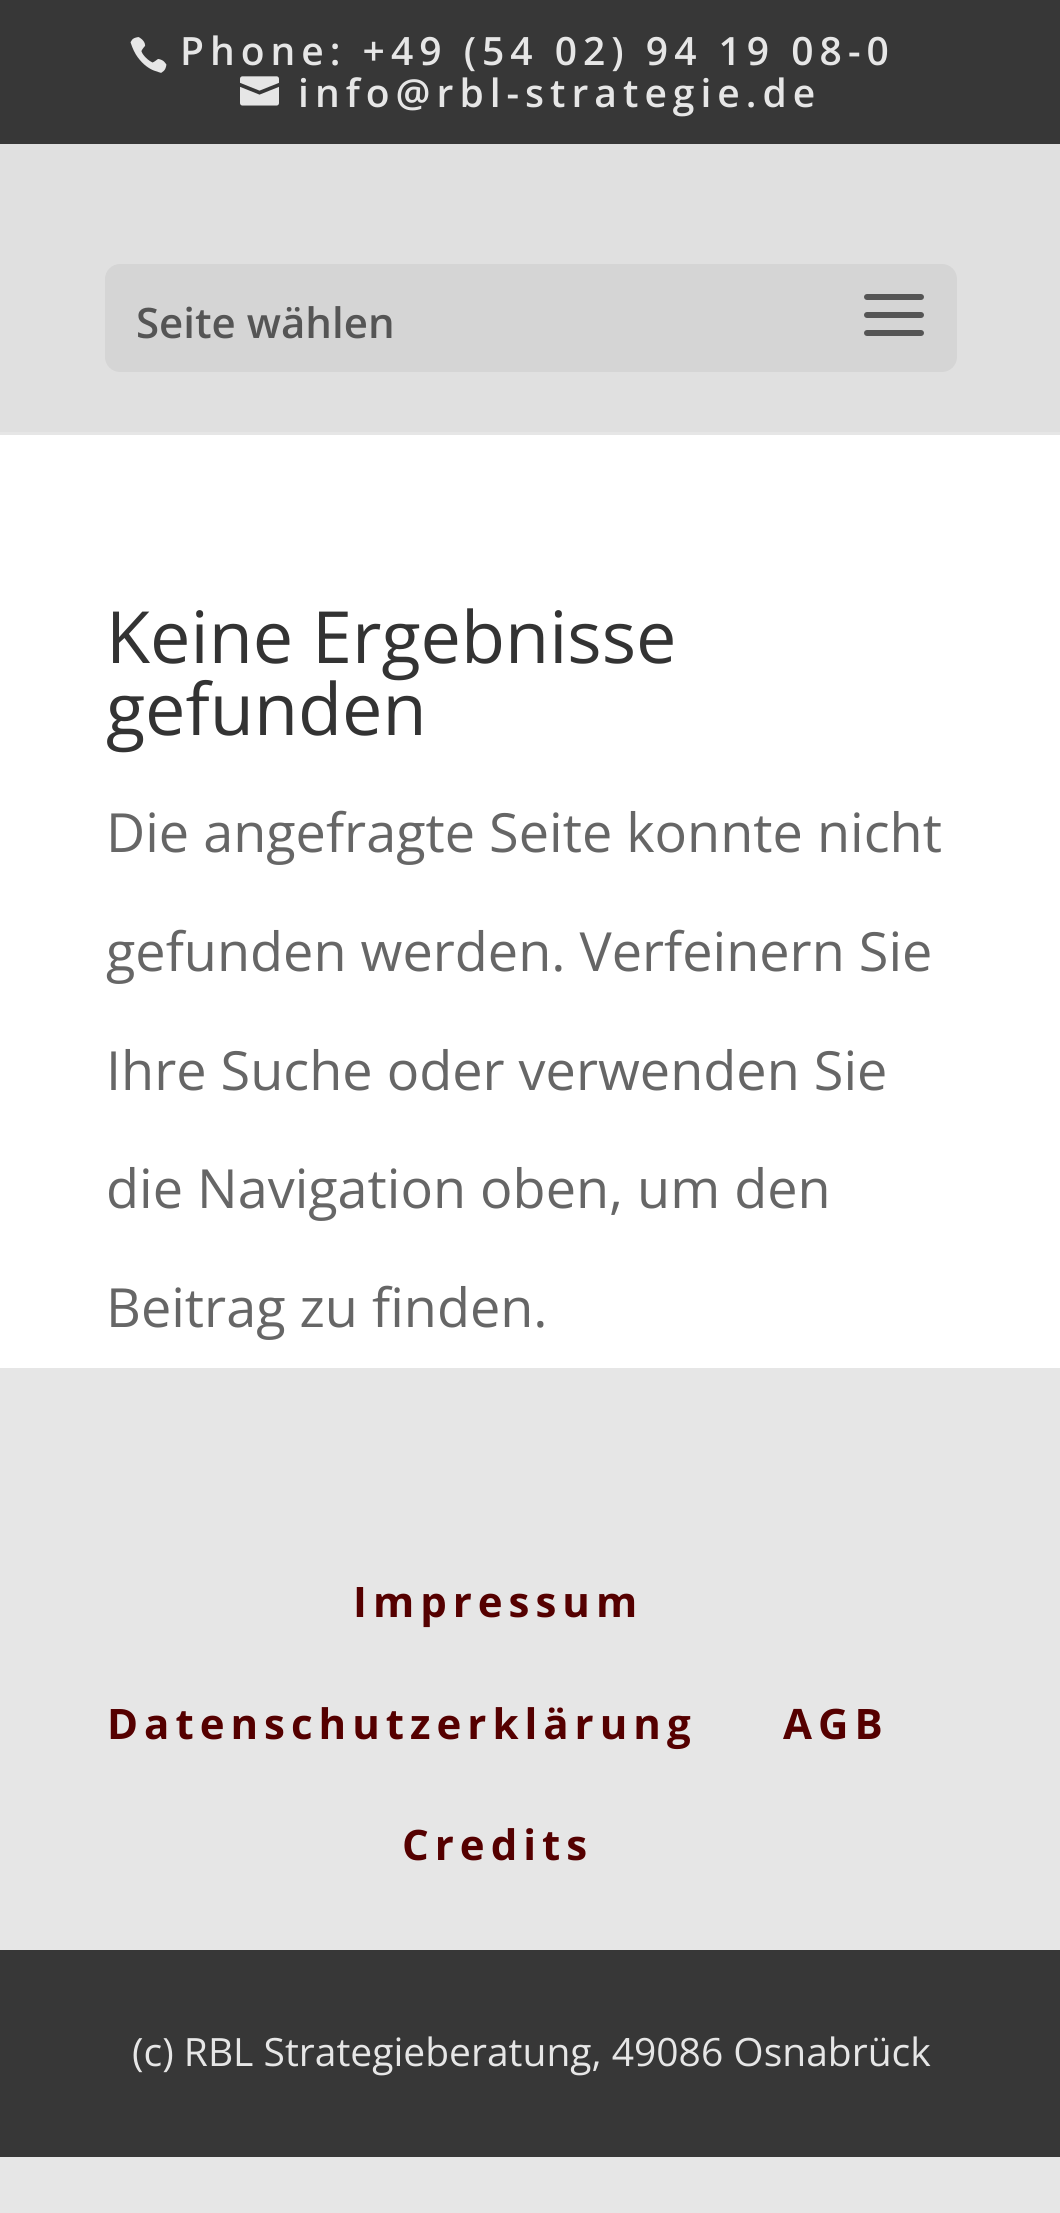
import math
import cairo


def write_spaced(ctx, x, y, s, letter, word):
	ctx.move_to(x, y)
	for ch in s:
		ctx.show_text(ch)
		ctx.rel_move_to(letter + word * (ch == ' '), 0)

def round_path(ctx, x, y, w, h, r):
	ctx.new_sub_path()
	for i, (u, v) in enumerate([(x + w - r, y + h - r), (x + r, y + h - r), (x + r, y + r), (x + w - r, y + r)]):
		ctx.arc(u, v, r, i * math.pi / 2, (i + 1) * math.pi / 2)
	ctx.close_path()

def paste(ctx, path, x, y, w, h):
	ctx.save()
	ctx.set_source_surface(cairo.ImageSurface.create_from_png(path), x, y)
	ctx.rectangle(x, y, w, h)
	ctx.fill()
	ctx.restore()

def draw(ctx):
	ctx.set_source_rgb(0.902, 0.902, 0.902)
	ctx.paint()
	ctx.set_source_rgb(0.216, 0.216, 0.216)
	ctx.rectangle(0, 0, 1060, 144)
	ctx.fill()
	paste(ctx, 'media/1.png', 130, 37, 37, 36)
	ctx.select_font_face('Open Sans SemiBold')
	ctx.set_font_size(39)
	ctx.set_source_rgb(0.902, 0.902, 0.902)
	write_spaced(ctx, 180, 65, 'Phone: +49 (54 02) 94 19 08-0', 6, 0)
	paste(ctx, 'media/2.png', 240, 76, 39, 30)
	write_spaced(ctx, 298, 107, 'info@rbl-strategie.de', 6, 0)
	ctx.set_source_rgb(0.878, 0.878, 0.878)
	ctx.rectangle(0, 144, 1060, 288)
	ctx.fill()
	ctx.set_source_rgb(0.835, 0.835, 0.835)
	round_path(ctx, 105, 264, 852, 108, 15)
	ctx.fill()
	ctx.set_font_size(42)
	ctx.set_source_rgb(0.333, 0.333, 0.333)
	ctx.move_to(136, 338)
	ctx.show_text('Seite wählen')
	paste(ctx, 'media/3.png', 864, 294, 60, 42)
	ctx.set_source_rgb(1, 1, 1)
	ctx.rectangle(0, 435, 1060, 933)
	ctx.fill()
	ctx.select_font_face('Open Sans')
	ctx.set_font_size(72)
	ctx.set_source_rgb(0.2, 0.2, 0.2)
	ctx.move_to(106, 663)
	ctx.show_text('Keine Ergebnisse')
	ctx.move_to(106, 735)
	ctx.show_text('gefunden')
	ctx.set_font_size(54)
	ctx.set_source_rgb(0.4, 0.4, 0.4)
	for x, y, s in [
		(106, 852, 'Die angefragte Seite konnte nicht'),
		(106, 971, 'gefunden werden. Verfeinern Sie'),
		(106, 1090, 'Ihre Suche oder verwenden Sie'),
		(106, 1208, 'die Navigation oben, um den'),
		(106, 1327, 'Beitrag zu finden.'),
	]:
		ctx.move_to(x, y)
		ctx.show_text(s)
	ctx.set_source_rgb(0.216, 0.216, 0.216)
	ctx.rectangle(0, 1950, 1060, 207)
	ctx.fill()
	ctx.select_font_face('Open Sans', cairo.FONT_SLANT_NORMAL, cairo.FONT_WEIGHT_BOLD)
	ctx.set_font_size(42)
	ctx.set_source_rgb(0.333, 0, 0)
	for x, y, s in [
		(353, 1617, 'Impressum'),
		(107, 1739, 'Datenschutzerklärung'),
		(783, 1739, 'AGB'),
		(402, 1860, 'Credits'),
	]:
		write_spaced(ctx, x, y, s, 6, 0)
	ctx.select_font_face('Open Sans')
	ctx.set_font_size(39)
	ctx.set_source_rgb(0.902, 0.902, 0.902)
	ctx.move_to(132, 2066)
	ctx.show_text('(c) RBL Strategieberatung, 49086 Osnabrück')


surface = cairo.ImageSurface(cairo.FORMAT_RGB24, 1060, 2213)
ctx = cairo.Context(surface)
options = cairo.FontOptions()
options.set_hint_metrics(cairo.HINT_METRICS_OFF)
options.set_hint_style(cairo.HINT_STYLE_NONE)
ctx.set_font_options(options)
ctx.set_miter_limit(4)
draw(ctx)
surface.write_to_png('image.png')
